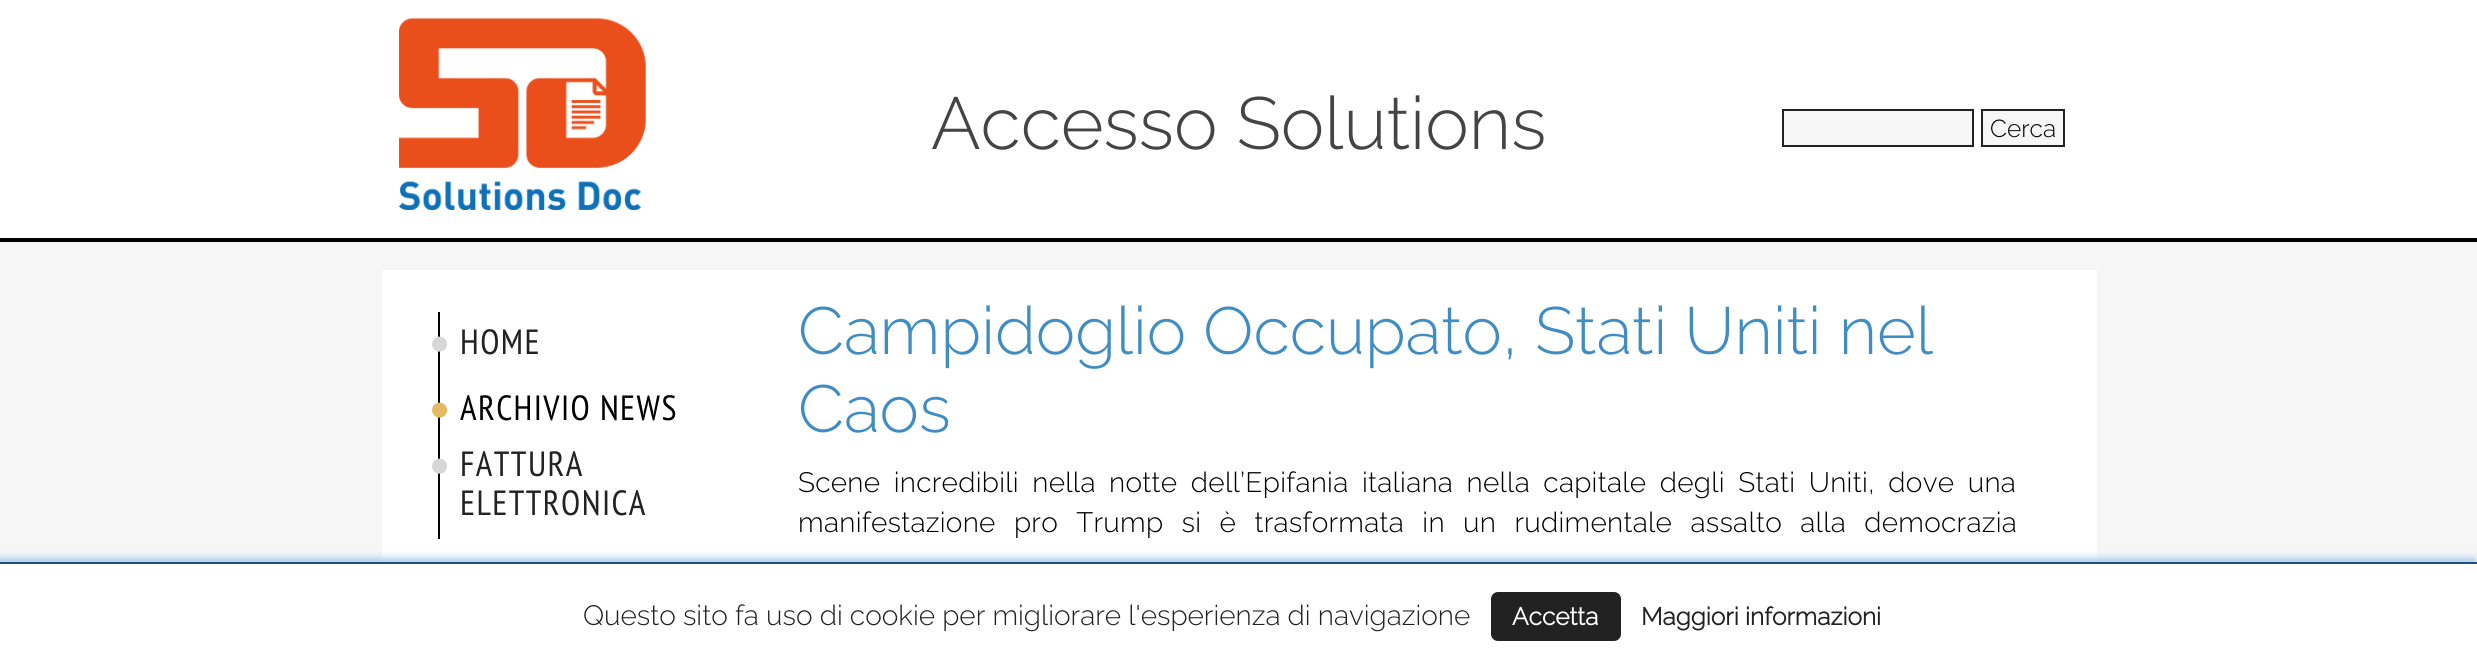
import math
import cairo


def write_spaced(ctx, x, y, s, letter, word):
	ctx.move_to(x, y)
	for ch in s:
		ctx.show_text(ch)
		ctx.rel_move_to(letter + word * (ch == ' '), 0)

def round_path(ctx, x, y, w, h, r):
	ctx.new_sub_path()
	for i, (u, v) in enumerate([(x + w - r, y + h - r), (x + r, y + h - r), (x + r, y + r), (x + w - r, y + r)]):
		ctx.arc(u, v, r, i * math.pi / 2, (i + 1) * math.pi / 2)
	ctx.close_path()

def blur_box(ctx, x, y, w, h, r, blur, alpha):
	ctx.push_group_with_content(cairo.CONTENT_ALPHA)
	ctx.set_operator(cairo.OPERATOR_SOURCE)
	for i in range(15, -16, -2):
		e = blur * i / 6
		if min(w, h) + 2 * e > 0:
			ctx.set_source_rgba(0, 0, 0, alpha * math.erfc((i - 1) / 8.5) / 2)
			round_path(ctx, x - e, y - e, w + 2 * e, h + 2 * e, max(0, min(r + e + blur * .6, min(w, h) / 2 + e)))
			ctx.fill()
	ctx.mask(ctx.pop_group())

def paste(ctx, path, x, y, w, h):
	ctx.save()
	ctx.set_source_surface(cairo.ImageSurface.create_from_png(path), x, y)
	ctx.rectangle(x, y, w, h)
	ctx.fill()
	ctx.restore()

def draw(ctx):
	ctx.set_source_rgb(0.961, 0.961, 0.961)
	ctx.paint()
	ctx.set_source_rgb(1, 1, 1)
	ctx.rectangle(0, 0, 2477, 238)
	ctx.fill()
	ctx.set_source_rgb(0, 0, 0)
	ctx.rectangle(0, 238, 2477, 4)
	ctx.fill()
	paste(ctx, 'media/1.png', 399, 17, 247, 193)
	ctx.select_font_face('Raleway Thin')
	ctx.set_font_size(73.5)
	ctx.set_source_rgb(0.267, 0.267, 0.267)
	ctx.move_to(931, 149)
	ctx.show_text('Accesso Solutions')
	ctx.set_source_rgb(0.961, 0.961, 0.961)
	ctx.rectangle(1783, 110, 190, 36)
	ctx.fill_preserve()
	ctx.set_source_rgb(0.133, 0.133, 0.133)
	ctx.stroke()
	ctx.set_source_rgb(0.961, 0.961, 0.961)
	ctx.rectangle(1982, 110, 82, 36)
	ctx.fill_preserve()
	ctx.set_source_rgb(0.133, 0.133, 0.133)
	ctx.stroke()
	ctx.set_font_size(24.5)
	ctx.set_source_rgb(0, 0, 0)
	ctx.move_to(1990, 137)
	ctx.show_text('Cerca')
	ctx.set_source_rgb(1, 1, 1)
	ctx.rectangle(382, 270, 1715, 292)
	ctx.fill()
	ctx.set_source_rgb(0, 0, 0)
	ctx.rectangle(438, 312, 2, 227)
	ctx.fill()
	ctx.select_font_face('Liberation Sans')
	ctx.set_font_size(35)
	ctx.set_source_rgb(0.843, 0.843, 0.843)
	write_spaced(ctx, 429, 354, '●', 1.4, 0)
	ctx.select_font_face('PT Sans Narrow')
	ctx.set_source_rgb(0.133, 0.133, 0.133)
	write_spaced(ctx, 460, 354, 'HOME', 1.4, 0)
	ctx.select_font_face('Liberation Sans')
	ctx.set_source_rgb(0.898, 0.725, 0.388)
	write_spaced(ctx, 429, 420, '●', 1.4, 0)
	ctx.select_font_face('PT Sans Narrow')
	ctx.set_source_rgb(0, 0, 0)
	write_spaced(ctx, 460, 420, 'ARCHIVIO NEWS', 1.4, 0)
	ctx.select_font_face('Liberation Sans')
	ctx.set_source_rgb(0.843, 0.843, 0.843)
	write_spaced(ctx, 429, 476, '●', 1.4, 0)
	ctx.select_font_face('PT Sans Narrow')
	ctx.set_source_rgb(0.133, 0.133, 0.133)
	write_spaced(ctx, 460, 476, 'FATTURA', 1.4, 0)
	write_spaced(ctx, 460, 515, 'ELETTRONICA', 1.4, 0)
	ctx.select_font_face('Raleway Thin')
	ctx.set_font_size(66.5)
	ctx.set_source_rgb(0.251, 0.553, 0.765)
	ctx.move_to(798, 354)
	ctx.show_text('Campidoglio Occupato, Stati Uniti nel')
	ctx.move_to(798, 432)
	ctx.show_text('Caos')
	ctx.set_font_size(28)
	ctx.set_source_rgb(0, 0, 0)
	write_spaced(ctx, 798, 492, 'Scene incredibili nella notte dell’Epifania italiana nella capitale degli Stati Uniti, dove una', 0.28, 5.9)
	write_spaced(ctx, 798, 532, 'manifestazione pro Trump si è trasformata in un rudimentale assalto alla democrazia', 0.28, 10.75)
	ctx.set_source_rgb(0.667, 0.8, 0.933)
	blur_box(ctx, -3, 558, 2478, 107, 0, 3.5, 1)
	ctx.set_source_rgb(1, 1, 1)
	ctx.rectangle(0, 564, 2477, 104)
	ctx.fill()
	ctx.set_source_rgb(0.125, 0.314, 0.506)
	ctx.rectangle(0, 562, 2477, 2)
	ctx.fill()
	ctx.set_source_rgb(0.133, 0.133, 0.133)
	ctx.move_to(583, 625)
	ctx.show_text('Questo sito fa uso di cookie per migliorare l\'esperienza di navigazione')
	round_path(ctx, 1491, 592, 130, 49, 7)
	ctx.fill()
	ctx.select_font_face('Raleway', cairo.FONT_SLANT_NORMAL, cairo.FONT_WEIGHT_BOLD)
	ctx.set_font_size(24.5)
	ctx.set_source_rgb(1, 1, 1)
	ctx.move_to(1512, 625)
	ctx.show_text('Accetta')
	ctx.set_source_rgb(0.133, 0.133, 0.133)
	ctx.move_to(1641, 625)
	ctx.show_text('Maggiori informazioni')


surface = cairo.ImageSurface(cairo.FORMAT_RGB24, 2477, 668)
ctx = cairo.Context(surface)
options = cairo.FontOptions()
options.set_hint_metrics(cairo.HINT_METRICS_OFF)
options.set_hint_style(cairo.HINT_STYLE_NONE)
ctx.set_font_options(options)
ctx.set_miter_limit(4)
draw(ctx)
surface.write_to_png('image.png')
